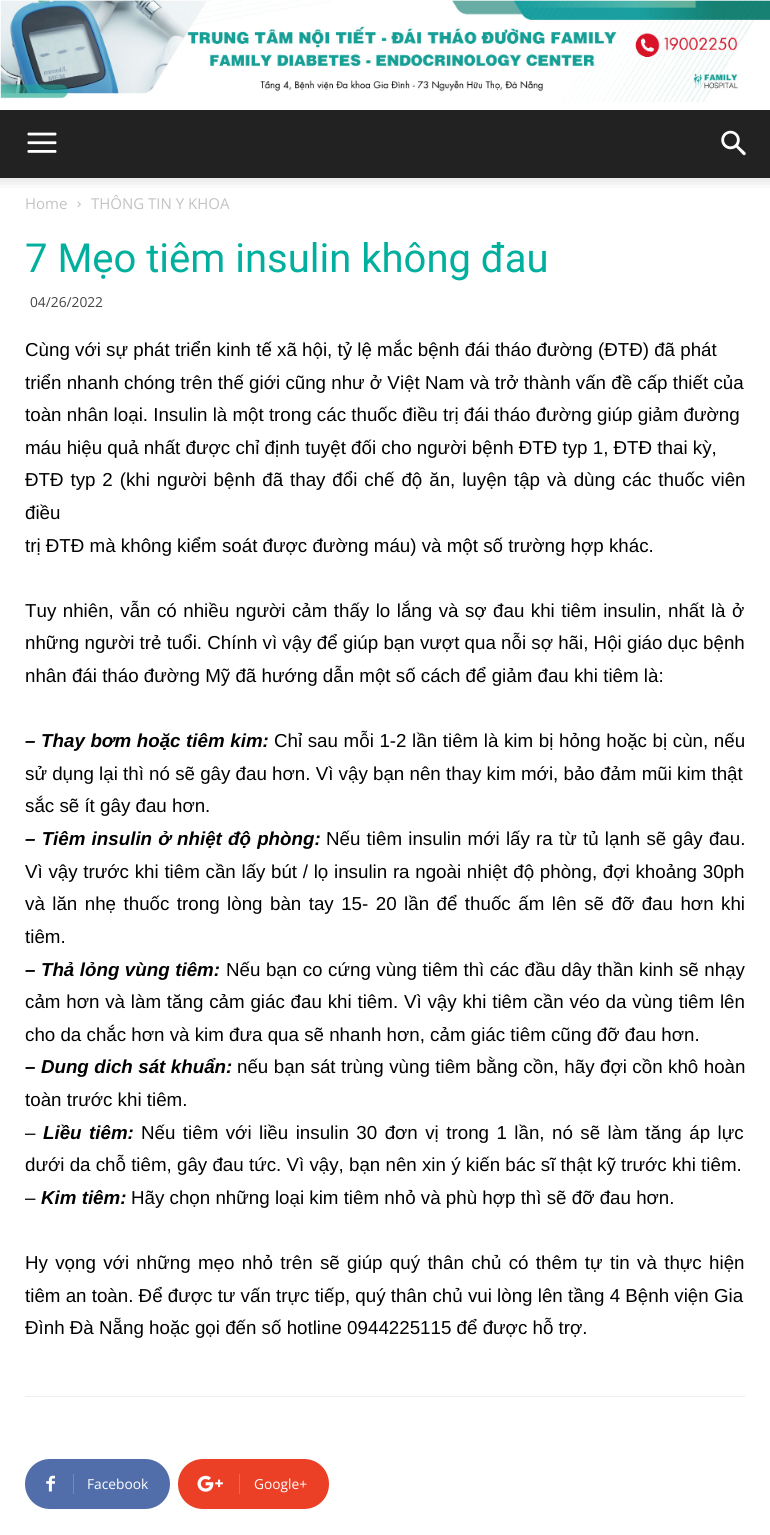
import math
import cairo


def write_spaced(ctx, x, y, s, letter, word):
	ctx.move_to(x, y)
	for ch in s:
		ctx.show_text(ch)
		ctx.rel_move_to(letter + word * (ch == ' '), 0)

def paste(ctx, path, x, y, w, h):
	ctx.save()
	ctx.set_source_surface(cairo.ImageSurface.create_from_png(path), x, y)
	ctx.rectangle(x, y, w, h)
	ctx.fill()
	ctx.restore()

def draw(ctx):
	ctx.set_source_rgb(1, 1, 1)
	ctx.paint()
	paste(ctx, 'media/1.png', 0, 0, 770, 103)
	ctx.set_source_rgb(0.133, 0.133, 0.133)
	ctx.rectangle(0, 110, 770, 68)
	ctx.fill()
	paste(ctx, 'media/2.png', 27, 132, 30, 21)
	paste(ctx, 'media/3.png', 721, 130, 25, 26)
	paste(ctx, 'media/4.png', 0, 178, 770, 10)
	ctx.select_font_face('Open Sans')
	ctx.set_font_size(15)
	ctx.set_source_rgb(0.765, 0.765, 0.765)
	ctx.move_to(25, 209)
	ctx.show_text('Home')
	paste(ctx, 'media/5.png', 77, 201, 4, 7)
	ctx.move_to(91, 209)
	ctx.show_text('THÔNG TIN Y KHOA')
	ctx.select_font_face('Roboto')
	ctx.set_font_size(40)
	ctx.set_source_rgb(0, 0.686, 0.616)
	ctx.move_to(25, 272)
	ctx.show_text('7 Mẹo tiêm insulin không đau')
	ctx.select_font_face('Open Sans')
	ctx.set_font_size(13.75)
	ctx.set_source_rgb(0.267, 0.267, 0.267)
	ctx.move_to(30, 307)
	ctx.show_text('04/26/2022')
	ctx.select_font_face('Liberation Sans')
	ctx.set_font_size(18.75)
	ctx.set_source_rgb(0, 0, 0)
	for x, y, s in [
		(25, 356, 'Cùng với sự phát triển kinh tế xã hội, tỷ lệ mắc bệnh đái tháo đường (ĐTĐ) đã phát'),
		(25, 389, 'triển nhanh chóng trên thế giới cũng như ở Việt Nam và trở thành vấn đề cấp thiết của'),
		(25, 421, 'toàn nhân loại. Insulin là một trong các thuốc điều trị đái tháo đường giúp giảm đường'),
		(25, 454, 'máu hiệu quả nhất được chỉ định tuyệt đối cho người bệnh ĐTĐ typ 1, ĐTĐ thai kỳ,'),
	]:
		ctx.move_to(x, y)
		ctx.show_text(s)
	write_spaced(ctx, 25, 486, 'ĐTĐ typ 2 (khi người bệnh đã thay đổi chế độ ăn, luyện tập và dùng các thuốc viên', 0, 1.7)
	ctx.move_to(25, 519)
	ctx.show_text('điều')
	ctx.move_to(25, 552)
	ctx.show_text('trị ĐTĐ mà không kiểm soát được đường máu) và một số trường hợp khác.')
	write_spaced(ctx, 25, 617, 'Tuy nhiên, vẫn có nhiều người cảm thấy lo lắng và sợ đau khi tiêm insulin, nhất là ở', 0, 1.25)
	ctx.move_to(25, 649)
	ctx.show_text('những người trẻ tuổi. Chính vì vậy để giúp bạn vượt qua nỗi sợ hãi, Hội giáo dục bệnh')
	ctx.move_to(25, 682)
	ctx.show_text('nhân đái tháo đường Mỹ đã hướng dẫn một số cách để giảm đau khi tiêm là:')
	ctx.select_font_face('Liberation Sans', cairo.FONT_SLANT_ITALIC, cairo.FONT_WEIGHT_BOLD)
	write_spaced(ctx, 25, 747, '– Thay bơm hoặc tiêm kim:', 0, 0.4)
	ctx.select_font_face('Liberation Sans')
	write_spaced(ctx, 274, 747, 'Chỉ sau mỗi 1-2 lần tiêm là kim bị hỏng hoặc bị cùn, nếu', 0, 0.4)
	ctx.move_to(25, 780)
	ctx.show_text('sử dụng lại thì nó sẽ gây đau hơn. Vì vậy bạn nên thay kim mới, bảo đảm mũi kim thật')
	ctx.move_to(25, 812)
	ctx.show_text('sắc sẽ ít gây đau hơn.')
	ctx.select_font_face('Liberation Sans', cairo.FONT_SLANT_ITALIC, cairo.FONT_WEIGHT_BOLD)
	write_spaced(ctx, 25, 845, '– Tiêm insulin ở nhiệt độ phòng:', 0, 1)
	ctx.select_font_face('Liberation Sans')
	write_spaced(ctx, 326, 845, 'Nếu tiêm insulin mới lấy ra từ tủ lạnh sẽ gây đau.', 0, 1)
	write_spaced(ctx, 25, 878, 'Vì vậy trước khi tiêm cần lấy', 0, 0.5)
	write_spaced(ctx, 271, 878, 'bút / lọ insulin ra ngoài nhiệt độ phòng, đợi khoảng 30ph', 0, 0.5)
	write_spaced(ctx, 25, 910, 'và lăn nhẹ thuốc trong lòng bàn tay 15- 20 lần để thuốc ấm lên sẽ đỡ đau hơn khi', 0, 2.25)
	ctx.move_to(25, 943)
	ctx.show_text('tiêm.')
	ctx.select_font_face('Liberation Sans', cairo.FONT_SLANT_ITALIC, cairo.FONT_WEIGHT_BOLD)
	write_spaced(ctx, 25, 976, '– Thả lỏng vùng tiêm:', 0, 0.3)
	ctx.select_font_face('Liberation Sans')
	write_spaced(ctx, 226, 976, 'Nếu bạn co cứng vùng tiêm thì các đầu dây thần kinh sẽ nhạy', 0, 0.3)
	write_spaced(ctx, 25, 1008, 'cảm hơn và làm tăng cảm giác đau khi tiêm. Vì vậy khi tiêm cần véo da vùng tiêm lên', 0, 0.6)
	ctx.move_to(25, 1041)
	ctx.show_text('cho da chắc hơn và kim đưa qua sẽ nhanh hơn, cảm giác tiêm cũng đỡ đau hơn.')
	ctx.select_font_face('Liberation Sans', cairo.FONT_SLANT_ITALIC, cairo.FONT_WEIGHT_BOLD)
	write_spaced(ctx, 25, 1073, '– Dung dich sát khuẩn:', 0, 0.25)
	ctx.select_font_face('Liberation Sans')
	write_spaced(ctx, 237, 1073, 'nếu bạn sát trùng vùng tiêm bằng cồn, hãy đợi cồn khô hoàn', 0, 0.25)
	ctx.move_to(25, 1106)
	ctx.show_text('toàn trước khi tiêm.')
	ctx.move_to(25, 1139)
	ctx.show_text('–')
	ctx.select_font_face('Liberation Sans', cairo.FONT_SLANT_ITALIC, cairo.FONT_WEIGHT_BOLD)
	write_spaced(ctx, 43, 1139, 'Liều tiêm:', 0, 2.25)
	ctx.select_font_face('Liberation Sans')
	write_spaced(ctx, 141, 1139, 'Nếu tiêm với liều insulin 30 đơn vị trong 1 lần, nó sẽ làm tăng áp lực', 0, 2.25)
	ctx.move_to(25, 1171)
	ctx.show_text('dưới da chỗ tiêm, gây đau tức. Vì vậy, bạn nên xin ý kiến bác sĩ thật kỹ trước khi tiêm.')
	ctx.move_to(25, 1204)
	ctx.show_text('–')
	ctx.select_font_face('Liberation Sans', cairo.FONT_SLANT_ITALIC, cairo.FONT_WEIGHT_BOLD)
	ctx.move_to(41, 1204)
	ctx.show_text('Kim tiêm:')
	ctx.select_font_face('Liberation Sans')
	ctx.move_to(131, 1204)
	ctx.show_text('Hãy chọn những loại kim tiêm nhỏ và phù hợp thì sẽ đỡ đau hơn.')
	write_spaced(ctx, 25, 1269, 'Hy vọng với những mẹo nhỏ trên sẽ giúp quý thân chủ có thêm tự tin và thực hiện', 0, 2.1)
	ctx.move_to(25, 1302)
	ctx.show_text('tiêm an toàn. Để được tư vấn trực tiếp, quý thân chủ vui lòng lên tầng 4 Bệnh viện Gia')
	ctx.move_to(25, 1334)
	ctx.show_text('Đình Đà Nẵng hoặc gọi đến số hotline 0944225115 để được hỗ trợ.')
	ctx.set_source_rgb(0.929, 0.929, 0.929)
	ctx.rectangle(25, 1396, 720, 1)
	ctx.fill()
	ctx.set_source_rgb(0.318, 0.431, 0.671)
	ctx.new_path()
	ctx.move_to(73, 1459)
	ctx.line_to(145, 1459)
	ctx.curve_to(159, 1459, 170, 1470, 170, 1484)
	ctx.curve_to(170, 1498, 159, 1509, 145, 1509)
	ctx.line_to(73, 1509)
	ctx.close_path()
	ctx.fill()
	ctx.new_path()
	ctx.move_to(50, 1459)
	ctx.line_to(76, 1459)
	ctx.line_to(76, 1509)
	ctx.line_to(50, 1509)
	ctx.curve_to(36, 1509, 25, 1498, 25, 1484)
	ctx.curve_to(25, 1470, 36, 1459, 50, 1459)
	ctx.close_path()
	ctx.fill()
	paste(ctx, 'media/6.png', 46, 1475, 9, 17)
	ctx.set_source_rgb(0.455, 0.545, 0.737)
	ctx.rectangle(73, 1474, 1, 20)
	ctx.fill()
	ctx.select_font_face('Open Sans')
	ctx.set_font_size(13.75)
	ctx.set_source_rgb(1, 1, 1)
	ctx.move_to(87, 1489)
	ctx.show_text('Facebook')
	ctx.set_source_rgb(0.922, 0.251, 0.149)
	ctx.new_path()
	ctx.move_to(239, 1459)
	ctx.line_to(304, 1459)
	ctx.curve_to(318, 1459, 329, 1470, 329, 1484)
	ctx.curve_to(329, 1498, 318, 1509, 304, 1509)
	ctx.line_to(239, 1509)
	ctx.close_path()
	ctx.fill()
	ctx.new_path()
	ctx.move_to(203, 1459)
	ctx.line_to(243, 1459)
	ctx.line_to(243, 1509)
	ctx.line_to(203, 1509)
	ctx.curve_to(189, 1509, 178, 1498, 178, 1484)
	ctx.curve_to(178, 1470, 189, 1459, 203, 1459)
	ctx.close_path()
	ctx.fill()
	paste(ctx, 'media/7.png', 197, 1475, 26, 17)
	ctx.set_source_rgb(0.937, 0.4, 0.318)
	ctx.rectangle(239, 1474, 1, 20)
	ctx.fill()
	ctx.set_source_rgb(1, 1, 1)
	ctx.move_to(254, 1489)
	ctx.show_text('Google+')


surface = cairo.ImageSurface(cairo.FORMAT_RGB24, 770, 1535)
ctx = cairo.Context(surface)
options = cairo.FontOptions()
options.set_hint_metrics(cairo.HINT_METRICS_OFF)
options.set_hint_style(cairo.HINT_STYLE_NONE)
ctx.set_font_options(options)
ctx.set_miter_limit(4)
draw(ctx)
surface.write_to_png('image.png')
